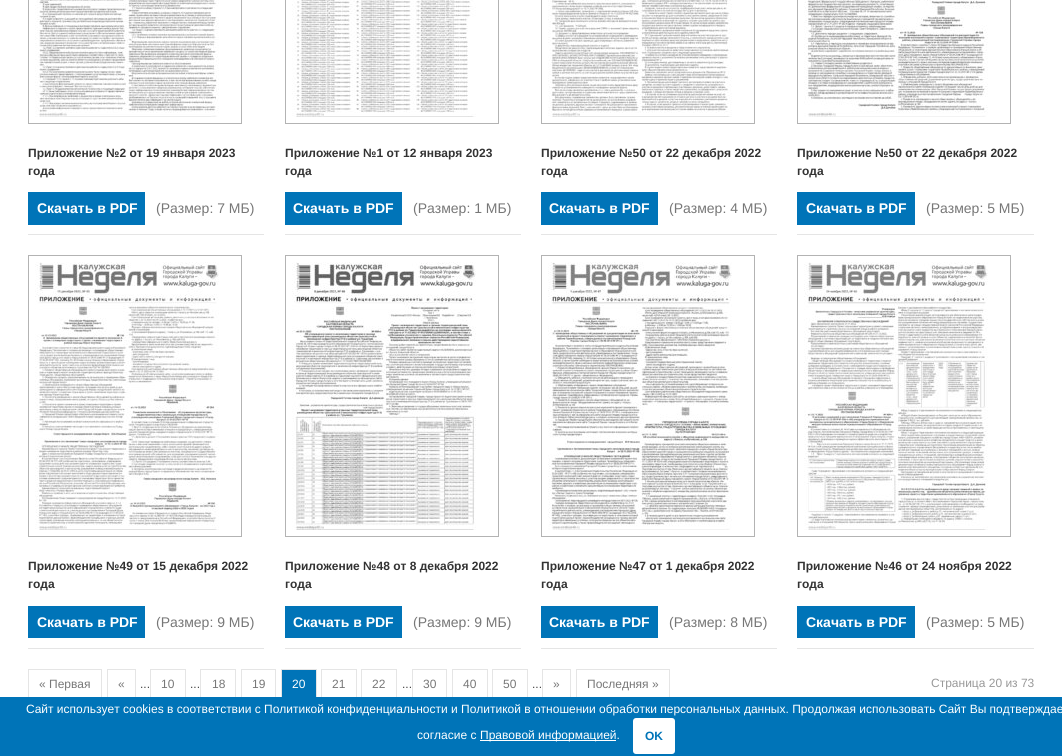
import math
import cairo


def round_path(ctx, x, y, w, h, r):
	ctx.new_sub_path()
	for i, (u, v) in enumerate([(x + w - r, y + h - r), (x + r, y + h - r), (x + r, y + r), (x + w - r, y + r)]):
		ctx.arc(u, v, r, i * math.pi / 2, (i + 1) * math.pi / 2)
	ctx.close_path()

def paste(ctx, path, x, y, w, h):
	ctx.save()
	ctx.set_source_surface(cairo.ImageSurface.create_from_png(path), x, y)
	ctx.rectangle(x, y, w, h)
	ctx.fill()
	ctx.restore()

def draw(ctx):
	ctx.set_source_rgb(1, 1, 1)
	ctx.paint()
	ctx.set_source_rgb(0.898, 0.898, 0.898)
	ctx.rectangle(28, 234, 236, 1)
	ctx.fill()
	ctx.rectangle(28.5, -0.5, 213, 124)
	ctx.set_source_rgb(0.702, 0.702, 0.702)
	ctx.set_line_width(1)
	ctx.stroke()
	paste(ctx, 'media/1.png', 35, 0, 184, 117)
	ctx.select_font_face('Liberation Sans', cairo.FONT_SLANT_NORMAL, cairo.FONT_WEIGHT_BOLD)
	ctx.set_font_size(12)
	ctx.set_source_rgb(0.2, 0.2, 0.2)
	ctx.move_to(28, 157)
	ctx.show_text('Приложение №2 от 19 января 2023')
	ctx.move_to(28, 175)
	ctx.show_text('года')
	ctx.set_source_rgb(0, 0.455, 0.722)
	ctx.rectangle(28, 192, 117, 33)
	ctx.fill()
	ctx.set_font_size(14)
	ctx.set_source_rgb(1, 1, 1)
	ctx.move_to(37, 213)
	ctx.show_text('Скачать в PDF')
	ctx.select_font_face('Liberation Sans')
	ctx.set_source_rgb(0.467, 0.467, 0.467)
	ctx.move_to(156, 213)
	ctx.show_text('(Размер: 7 МБ)')
	ctx.set_source_rgb(0.898, 0.898, 0.898)
	ctx.rectangle(285, 234, 236, 1)
	ctx.fill()
	ctx.rectangle(285.5, -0.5, 213, 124)
	ctx.set_source_rgb(0.702, 0.702, 0.702)
	ctx.stroke()
	paste(ctx, 'media/2.png', 292, 0, 184, 117)
	ctx.select_font_face('Liberation Sans', cairo.FONT_SLANT_NORMAL, cairo.FONT_WEIGHT_BOLD)
	ctx.set_font_size(12)
	ctx.set_source_rgb(0.2, 0.2, 0.2)
	ctx.move_to(285, 157)
	ctx.show_text('Приложение №1 от 12 января 2023')
	ctx.move_to(285, 175)
	ctx.show_text('года')
	ctx.set_source_rgb(0, 0.455, 0.722)
	ctx.rectangle(285, 192, 117, 33)
	ctx.fill()
	ctx.set_font_size(14)
	ctx.set_source_rgb(1, 1, 1)
	ctx.move_to(293, 213)
	ctx.show_text('Скачать в PDF')
	ctx.select_font_face('Liberation Sans')
	ctx.set_source_rgb(0.467, 0.467, 0.467)
	ctx.move_to(413, 213)
	ctx.show_text('(Размер: 1 МБ)')
	ctx.set_source_rgb(0.898, 0.898, 0.898)
	ctx.rectangle(541, 234, 236, 1)
	ctx.fill()
	ctx.rectangle(541.5, -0.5, 213, 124)
	ctx.set_source_rgb(0.702, 0.702, 0.702)
	ctx.stroke()
	paste(ctx, 'media/3.png', 548, 0, 184, 117)
	ctx.select_font_face('Liberation Sans', cairo.FONT_SLANT_NORMAL, cairo.FONT_WEIGHT_BOLD)
	ctx.set_font_size(12)
	ctx.set_source_rgb(0.2, 0.2, 0.2)
	ctx.move_to(541, 157)
	ctx.show_text('Приложение №50 от 22 декабря 2022')
	ctx.move_to(541, 175)
	ctx.show_text('года')
	ctx.set_source_rgb(0, 0.455, 0.722)
	ctx.rectangle(541, 192, 117, 33)
	ctx.fill()
	ctx.set_font_size(14)
	ctx.set_source_rgb(1, 1, 1)
	ctx.move_to(549, 213)
	ctx.show_text('Скачать в PDF')
	ctx.select_font_face('Liberation Sans')
	ctx.set_source_rgb(0.467, 0.467, 0.467)
	ctx.move_to(669, 213)
	ctx.show_text('(Размер: 4 МБ)')
	ctx.set_source_rgb(0.898, 0.898, 0.898)
	ctx.rectangle(797, 234, 237, 1)
	ctx.fill()
	ctx.rectangle(797.5, -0.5, 213, 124)
	ctx.set_source_rgb(0.702, 0.702, 0.702)
	ctx.stroke()
	paste(ctx, 'media/4.png', 804, 0, 184, 117)
	ctx.select_font_face('Liberation Sans', cairo.FONT_SLANT_NORMAL, cairo.FONT_WEIGHT_BOLD)
	ctx.set_font_size(12)
	ctx.set_source_rgb(0.2, 0.2, 0.2)
	ctx.move_to(797, 157)
	ctx.show_text('Приложение №50 от 22 декабря 2022')
	ctx.move_to(797, 175)
	ctx.show_text('года')
	ctx.set_source_rgb(0, 0.455, 0.722)
	ctx.rectangle(797, 192, 118, 33)
	ctx.fill()
	ctx.set_font_size(14)
	ctx.set_source_rgb(1, 1, 1)
	ctx.move_to(806, 213)
	ctx.show_text('Скачать в PDF')
	ctx.select_font_face('Liberation Sans')
	ctx.set_source_rgb(0.467, 0.467, 0.467)
	ctx.move_to(926, 213)
	ctx.show_text('(Размер: 5 МБ)')
	ctx.set_source_rgb(0.898, 0.898, 0.898)
	ctx.rectangle(28, 648, 236, 1)
	ctx.fill()
	ctx.rectangle(28.5, 255.5, 213, 281)
	ctx.set_source_rgb(0.702, 0.702, 0.702)
	ctx.stroke()
	paste(ctx, 'media/5.png', 35, 262, 184, 268)
	ctx.select_font_face('Liberation Sans', cairo.FONT_SLANT_NORMAL, cairo.FONT_WEIGHT_BOLD)
	ctx.set_font_size(12)
	ctx.set_source_rgb(0.2, 0.2, 0.2)
	ctx.move_to(28, 570)
	ctx.show_text('Приложение №49 от 15 декабря 2022')
	ctx.move_to(28, 588)
	ctx.show_text('года')
	ctx.set_source_rgb(0, 0.455, 0.722)
	ctx.rectangle(28, 606, 117, 32)
	ctx.fill()
	ctx.set_font_size(14)
	ctx.set_source_rgb(1, 1, 1)
	ctx.move_to(37, 627)
	ctx.show_text('Скачать в PDF')
	ctx.select_font_face('Liberation Sans')
	ctx.set_source_rgb(0.467, 0.467, 0.467)
	ctx.move_to(156, 627)
	ctx.show_text('(Размер: 9 МБ)')
	ctx.set_source_rgb(0.898, 0.898, 0.898)
	ctx.rectangle(285, 648, 236, 1)
	ctx.fill()
	ctx.rectangle(285.5, 255.5, 213, 281)
	ctx.set_source_rgb(0.702, 0.702, 0.702)
	ctx.stroke()
	paste(ctx, 'media/6.png', 292, 262, 184, 268)
	ctx.select_font_face('Liberation Sans', cairo.FONT_SLANT_NORMAL, cairo.FONT_WEIGHT_BOLD)
	ctx.set_font_size(12)
	ctx.set_source_rgb(0.2, 0.2, 0.2)
	ctx.move_to(285, 570)
	ctx.show_text('Приложение №48 от 8 декабря 2022')
	ctx.move_to(285, 588)
	ctx.show_text('года')
	ctx.set_source_rgb(0, 0.455, 0.722)
	ctx.rectangle(285, 606, 117, 32)
	ctx.fill()
	ctx.set_font_size(14)
	ctx.set_source_rgb(1, 1, 1)
	ctx.move_to(293, 627)
	ctx.show_text('Скачать в PDF')
	ctx.select_font_face('Liberation Sans')
	ctx.set_source_rgb(0.467, 0.467, 0.467)
	ctx.move_to(413, 627)
	ctx.show_text('(Размер: 9 МБ)')
	ctx.set_source_rgb(0.898, 0.898, 0.898)
	ctx.rectangle(541, 648, 236, 1)
	ctx.fill()
	ctx.rectangle(541.5, 255.5, 213, 281)
	ctx.set_source_rgb(0.702, 0.702, 0.702)
	ctx.stroke()
	paste(ctx, 'media/7.png', 548, 262, 184, 268)
	ctx.select_font_face('Liberation Sans', cairo.FONT_SLANT_NORMAL, cairo.FONT_WEIGHT_BOLD)
	ctx.set_font_size(12)
	ctx.set_source_rgb(0.2, 0.2, 0.2)
	ctx.move_to(541, 570)
	ctx.show_text('Приложение №47 от 1 декабря 2022')
	ctx.move_to(541, 588)
	ctx.show_text('года')
	ctx.set_source_rgb(0, 0.455, 0.722)
	ctx.rectangle(541, 606, 117, 32)
	ctx.fill()
	ctx.set_font_size(14)
	ctx.set_source_rgb(1, 1, 1)
	ctx.move_to(549, 627)
	ctx.show_text('Скачать в PDF')
	ctx.select_font_face('Liberation Sans')
	ctx.set_source_rgb(0.467, 0.467, 0.467)
	ctx.move_to(669, 627)
	ctx.show_text('(Размер: 8 МБ)')
	ctx.set_source_rgb(0.898, 0.898, 0.898)
	ctx.rectangle(797, 648, 237, 1)
	ctx.fill()
	ctx.rectangle(797.5, 255.5, 213, 281)
	ctx.set_source_rgb(0.702, 0.702, 0.702)
	ctx.stroke()
	paste(ctx, 'media/8.png', 804, 262, 184, 268)
	ctx.select_font_face('Liberation Sans', cairo.FONT_SLANT_NORMAL, cairo.FONT_WEIGHT_BOLD)
	ctx.set_font_size(12)
	ctx.set_source_rgb(0.2, 0.2, 0.2)
	ctx.move_to(797, 570)
	ctx.show_text('Приложение №46 от 24 ноября 2022')
	ctx.move_to(797, 588)
	ctx.show_text('года')
	ctx.set_source_rgb(0, 0.455, 0.722)
	ctx.rectangle(797, 606, 118, 32)
	ctx.fill()
	ctx.set_font_size(14)
	ctx.set_source_rgb(1, 1, 1)
	ctx.move_to(806, 627)
	ctx.show_text('Скачать в PDF')
	ctx.select_font_face('Liberation Sans')
	ctx.set_source_rgb(0.467, 0.467, 0.467)
	ctx.move_to(926, 627)
	ctx.show_text('(Размер: 5 МБ)')
	ctx.rectangle(28.5, 669.5, 73, 28)
	ctx.set_source_rgb(0.898, 0.898, 0.898)
	ctx.stroke()
	ctx.set_font_size(12)
	ctx.set_source_rgb(0.467, 0.467, 0.467)
	ctx.move_to(39, 688)
	ctx.show_text('« Первая')
	ctx.rectangle(107.5, 669.5, 28, 28)
	ctx.set_source_rgb(0.898, 0.898, 0.898)
	ctx.stroke()
	ctx.set_source_rgb(0.467, 0.467, 0.467)
	ctx.move_to(118, 688)
	ctx.show_text('«')
	ctx.set_source_rgb(0.267, 0.267, 0.267)
	ctx.move_to(140, 688)
	ctx.show_text('...')
	ctx.rectangle(150.5, 669.5, 35, 28)
	ctx.set_source_rgb(0.898, 0.898, 0.898)
	ctx.stroke()
	ctx.set_source_rgb(0.467, 0.467, 0.467)
	ctx.move_to(161, 688)
	ctx.show_text('10')
	ctx.set_source_rgb(0.267, 0.267, 0.267)
	ctx.move_to(190, 688)
	ctx.show_text('...')
	ctx.rectangle(200.5, 669.5, 35, 28)
	ctx.set_source_rgb(0.898, 0.898, 0.898)
	ctx.stroke()
	ctx.set_source_rgb(0.467, 0.467, 0.467)
	ctx.move_to(212, 688)
	ctx.show_text('18')
	ctx.rectangle(241.5, 669.5, 34, 28)
	ctx.set_source_rgb(0.898, 0.898, 0.898)
	ctx.stroke()
	ctx.set_source_rgb(0.467, 0.467, 0.467)
	ctx.move_to(252, 688)
	ctx.show_text('19')
	ctx.set_source_rgb(0, 0.455, 0.722)
	ctx.rectangle(281.5, 669.5, 35, 28)
	ctx.fill_preserve()
	ctx.set_source_rgb(0.898, 0.898, 0.898)
	ctx.stroke()
	ctx.set_source_rgb(1, 1, 1)
	ctx.move_to(292, 688)
	ctx.show_text('20')
	ctx.rectangle(321.5, 669.5, 35, 28)
	ctx.set_source_rgb(0.898, 0.898, 0.898)
	ctx.stroke()
	ctx.set_source_rgb(0.467, 0.467, 0.467)
	ctx.move_to(332, 688)
	ctx.show_text('21')
	ctx.rectangle(361.5, 669.5, 35, 28)
	ctx.set_source_rgb(0.898, 0.898, 0.898)
	ctx.stroke()
	ctx.set_source_rgb(0.467, 0.467, 0.467)
	ctx.move_to(372, 688)
	ctx.show_text('22')
	ctx.set_source_rgb(0.267, 0.267, 0.267)
	ctx.move_to(402, 688)
	ctx.show_text('...')
	ctx.rectangle(412.5, 669.5, 34, 28)
	ctx.set_source_rgb(0.898, 0.898, 0.898)
	ctx.stroke()
	ctx.set_source_rgb(0.467, 0.467, 0.467)
	ctx.move_to(423, 688)
	ctx.show_text('30')
	ctx.rectangle(452.5, 669.5, 35, 28)
	ctx.set_source_rgb(0.898, 0.898, 0.898)
	ctx.stroke()
	ctx.set_source_rgb(0.467, 0.467, 0.467)
	ctx.move_to(463, 688)
	ctx.show_text('40')
	ctx.rectangle(492.5, 669.5, 35, 28)
	ctx.set_source_rgb(0.898, 0.898, 0.898)
	ctx.stroke()
	ctx.set_source_rgb(0.467, 0.467, 0.467)
	ctx.move_to(503, 688)
	ctx.show_text('50')
	ctx.set_source_rgb(0.267, 0.267, 0.267)
	ctx.move_to(532, 688)
	ctx.show_text('...')
	ctx.rectangle(542.5, 669.5, 28, 28)
	ctx.set_source_rgb(0.898, 0.898, 0.898)
	ctx.stroke()
	ctx.set_source_rgb(0.467, 0.467, 0.467)
	ctx.move_to(553, 688)
	ctx.show_text('»')
	ctx.rectangle(576.5, 669.5, 93, 28)
	ctx.set_source_rgb(0.898, 0.898, 0.898)
	ctx.stroke()
	ctx.set_source_rgb(0.467, 0.467, 0.467)
	ctx.move_to(587, 688)
	ctx.show_text('Последняя »')
	ctx.set_source_rgb(0.6, 0.6, 0.6)
	ctx.move_to(931, 687)
	ctx.show_text('Страница 20 из 73')
	ctx.set_source_rgb(0, 0.455, 0.722)
	ctx.rectangle(0, 697, 1062, 59)
	ctx.fill()
	ctx.set_source_rgb(1, 1, 1)
	ctx.move_to(26, 713)
	ctx.show_text('Сайт использует cookies в соответствии с Политикой конфиденциальности и Политикой в отношении обработки персональных данных. Продолжая использовать Сайт Вы подтверждае')
	ctx.move_to(417, 739)
	ctx.show_text('согласие с')
	ctx.rectangle(480, 740, 136, 1)
	ctx.fill()
	ctx.move_to(480, 739)
	ctx.show_text('Правовой информацией.')
	round_path(ctx, 633, 718, 42, 36, 3)
	ctx.fill()
	ctx.select_font_face('Liberation Sans', cairo.FONT_SLANT_NORMAL, cairo.FONT_WEIGHT_BOLD)
	ctx.set_source_rgb(0, 0.455, 0.722)
	ctx.move_to(645, 740)
	ctx.show_text('OK')


surface = cairo.ImageSurface(cairo.FORMAT_RGB24, 1062, 756)
ctx = cairo.Context(surface)
options = cairo.FontOptions()
options.set_hint_metrics(cairo.HINT_METRICS_OFF)
options.set_hint_style(cairo.HINT_STYLE_NONE)
ctx.set_font_options(options)
ctx.set_miter_limit(4)
draw(ctx)
surface.write_to_png('image.png')
